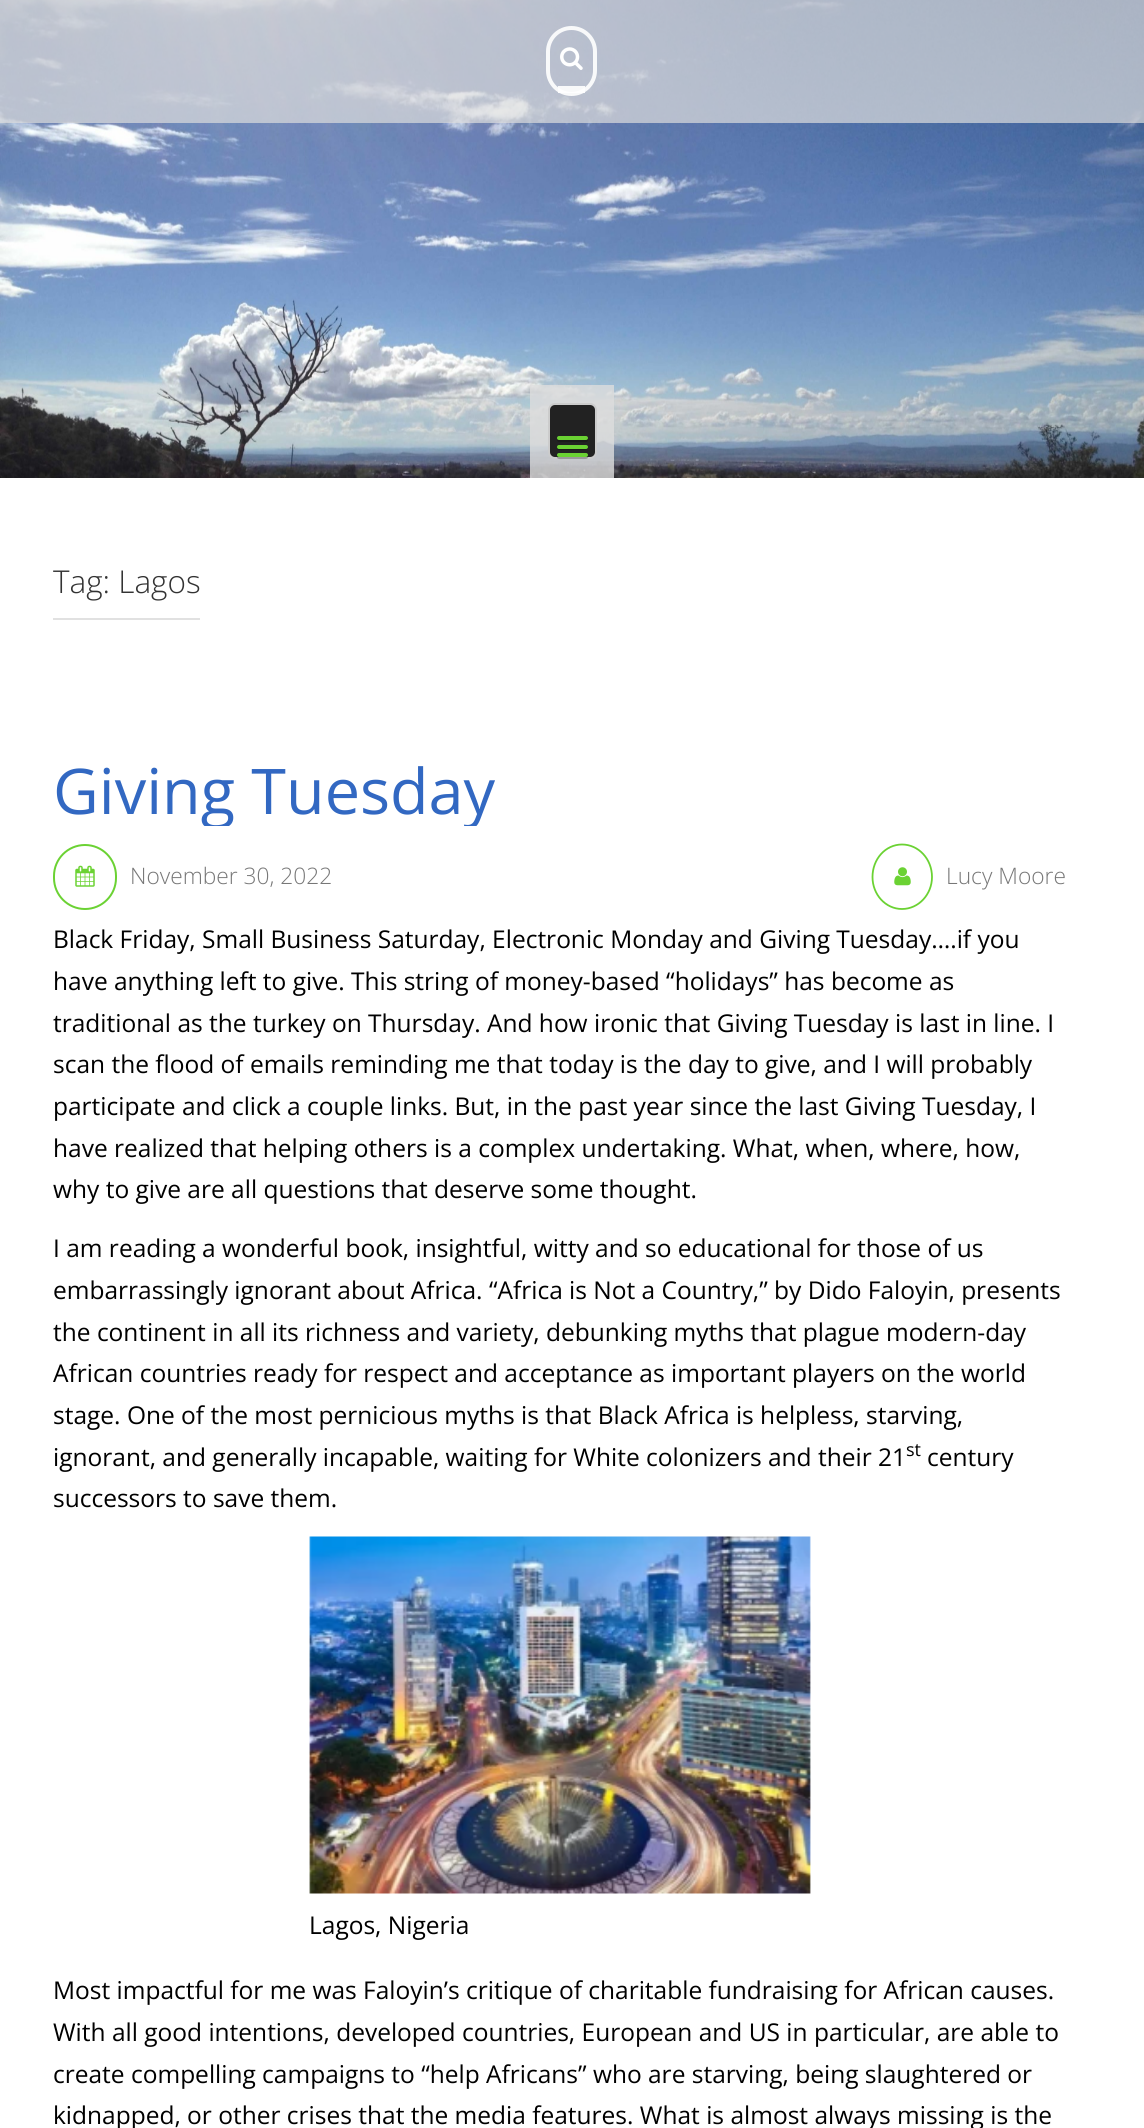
import math
import cairo


def round_path(ctx, x, y, w, h, r):
	ctx.new_sub_path()
	for i, (u, v) in enumerate([(x + w - r, y + h - r), (x + r, y + h - r), (x + r, y + r), (x + w - r, y + r)]):
		ctx.arc(u, v, r, i * math.pi / 2, (i + 1) * math.pi / 2)
	ctx.close_path()

def paste(ctx, path, x, y, w, h):
	ctx.save()
	ctx.set_source_surface(cairo.ImageSurface.create_from_png(path), x, y)
	ctx.rectangle(x, y, w, h)
	ctx.fill()
	ctx.restore()

def draw(ctx):
	ctx.set_source_rgb(1, 1, 1)
	ctx.paint()
	paste(ctx, 'media/1.png', 0, 0, 1144, 478)
	ctx.set_source_rgba(0.867, 0.867, 0.867, 0.7)
	ctx.rectangle(0, 0, 1144, 123)
	ctx.fill()
	round_path(ctx, 548, 28, 47, 66, 23.5)
	ctx.set_source_rgba(1, 1, 1, 0.9)
	ctx.set_line_width(4)
	ctx.stroke()
	ctx.rectangle(558, 86, 27, 7)
	ctx.fill()
	paste(ctx, 'media/2.png', 560, 47, 23, 23)
	ctx.set_source_rgba(0.867, 0.867, 0.867, 0.8)
	ctx.rectangle(530, 385, 84, 93)
	ctx.fill()
	ctx.set_source_rgb(0.133, 0.133, 0.133)
	round_path(ctx, 549, 404, 47, 54, 6)
	ctx.fill_preserve()
	ctx.set_source_rgb(0.8, 0.8, 0.8)
	ctx.set_line_width(2)
	ctx.stroke()
	ctx.set_source_rgb(0.102, 0.102, 0.102)
	ctx.new_path()
	ctx.move_to(557.5, 439)
	ctx.curve_to(555, 443, 563, 442, 563.5, 442)
	ctx.line_to(581.5, 442)
	ctx.curve_to(582.5, 442, 587.5, 443, 588, 440.5)
	ctx.curve_to(588, 440, 588, 439, 587.5, 438.5)
	ctx.line_to(586.5, 439)
	ctx.curve_to(584, 439.5, 558, 439.5, 557.5, 439)
	ctx.close_path()
	ctx.fill()
	ctx.set_source_rgb(0.42, 0.824, 0.2)
	round_path(ctx, 557, 436, 31, 4, 2)
	ctx.fill()
	ctx.set_source_rgb(0.102, 0.102, 0.102)
	ctx.new_path()
	ctx.move_to(557, 447.5)
	ctx.curve_to(556, 451, 562.5, 450, 563.5, 450)
	ctx.line_to(581.5, 450)
	ctx.curve_to(582.5, 450, 589.5, 451, 588, 447)
	ctx.line_to(586.5, 448)
	ctx.line_to(558, 448)
	ctx.close_path()
	ctx.fill()
	ctx.set_source_rgb(0.42, 0.824, 0.2)
	round_path(ctx, 557, 445, 31, 4, 2)
	ctx.fill()
	ctx.set_source_rgba(0, 0, 0, 0.25)
	ctx.new_path()
	ctx.move_to(557, 456.5)
	ctx.curve_to(556, 460, 562.5, 459, 563.5, 459)
	ctx.line_to(581.5, 459)
	ctx.curve_to(582, 459, 590, 460, 587.5, 456)
	ctx.line_to(586.5, 456.5)
	ctx.line_to(558, 456.5)
	ctx.close_path()
	ctx.fill()
	ctx.set_source_rgb(0.42, 0.824, 0.2)
	round_path(ctx, 557, 453, 31, 4, 2)
	ctx.fill()
	ctx.set_source_rgb(0.882, 0.882, 0.882)
	ctx.rectangle(53, 618, 147, 2)
	ctx.fill()
	ctx.select_font_face('Open Sans Light')
	ctx.set_font_size(31.5)
	ctx.set_source_rgb(0.2, 0.2, 0.2)
	ctx.move_to(53, 593)
	ctx.show_text('Tag: Lagos')
	ctx.save()
	ctx.rectangle(53, 756, 442, 70)
	ctx.clip()
	ctx.select_font_face('Open Sans')
	ctx.set_font_size(63)
	ctx.set_source_rgb(0.196, 0.408, 0.761)
	ctx.move_to(53, 814)
	ctx.show_text('Giving Tuesday')
	ctx.restore()
	round_path(ctx, 54, 845, 62, 64, 31)
	ctx.set_source_rgb(0.42, 0.824, 0.2)
	ctx.stroke()
	paste(ctx, 'media/3.png', 75, 865, 20, 22)
	ctx.set_font_size(22.75)
	ctx.set_source_rgb(0.467, 0.467, 0.467)
	ctx.move_to(130, 884)
	ctx.show_text('November 30, 2022')
	ctx.new_path()
	ctx.move_to(902, 844.5)
	ctx.curve_to(918.5, 844.5, 932, 859, 932, 877)
	ctx.curve_to(932, 894.5, 918.5, 909, 902, 909)
	ctx.curve_to(885.5, 909, 872.5, 894.5, 872.5, 877)
	ctx.curve_to(872.5, 859, 885.5, 844.5, 902, 844.5)
	ctx.close_path()
	ctx.set_source_rgb(0.42, 0.824, 0.2)
	ctx.set_line_width(1.8)
	ctx.stroke()
	paste(ctx, 'media/4.png', 894, 867, 17, 19)
	ctx.set_source_rgb(0.467, 0.467, 0.467)
	ctx.move_to(946, 884)
	ctx.show_text('Lucy Moore')
	ctx.select_font_face('Open Sans')
	ctx.set_font_size(24.5)
	ctx.set_source_rgb(0, 0, 0)
	for x, y, s in [
		(53, 948, 'Black Friday, Small Business Saturday, Electronic Monday and Giving Tuesday….if you'),
		(53, 990, 'have anything left to give. This string of money-based “holidays” has become as'),
		(53, 1032, 'traditional as the turkey on Thursday. And how ironic that Giving Tuesday is last in line. I'),
		(53, 1073, 'scan the flood of emails reminding me that today is the day to give, and I will probably'),
		(53, 1115, 'participate and click a couple links. But, in the past year since the last Giving Tuesday, I'),
		(53, 1157, 'have realized that helping others is a complex undertaking. What, when, where, how,'),
		(53, 1198, 'why to give are all questions that deserve some thought.'),
		(53, 1257, 'I am reading a wonderful book, insightful, witty and so educational for those of us'),
		(53, 1299, 'embarrassingly ignorant about Africa. “Africa is Not a Country,” by Dido Faloyin, presents'),
		(53, 1341, 'the continent in all its richness and variety, debunking myths that plague modern-day'),
		(53, 1382, 'African countries ready for respect and acceptance as important players on the world'),
		(53, 1424, 'stage. One of the most pernicious myths is that Black Africa is helpless, starving,'),
		(53, 1466, 'ignorant, and generally incapable, waiting for White colonizers and their 21'),
	]:
		ctx.move_to(x, y)
		ctx.show_text(s)
	ctx.set_font_size(18)
	ctx.move_to(906, 1456)
	ctx.show_text('st')
	ctx.set_font_size(24.5)
	ctx.move_to(927, 1466)
	ctx.show_text('century')
	ctx.move_to(53, 1507)
	ctx.show_text('successors to save them.')
	paste(ctx, 'media/5.png', 309, 1536, 502, 358)
	for x, y, s in [
		(309, 1934, 'Lagos, Nigeria'),
		(53, 1999, 'Most impactful for me was Faloyin’s critique of charitable fundraising for African causes.'),
		(53, 2041, 'With all good intentions, developed countries, European and US in particular, are able to'),
		(53, 2083, 'create compelling campaigns to “help Africans” who are starving, being slaughtered or'),
		(53, 2124, 'kidnapped, or other crises that the media features. What is almost always missing is the'),
	]:
		ctx.move_to(x, y)
		ctx.show_text(s)


surface = cairo.ImageSurface(cairo.FORMAT_RGB24, 1144, 2128)
ctx = cairo.Context(surface)
options = cairo.FontOptions()
options.set_hint_metrics(cairo.HINT_METRICS_OFF)
options.set_hint_style(cairo.HINT_STYLE_NONE)
ctx.set_font_options(options)
ctx.set_miter_limit(4)
draw(ctx)
surface.write_to_png('image.png')
